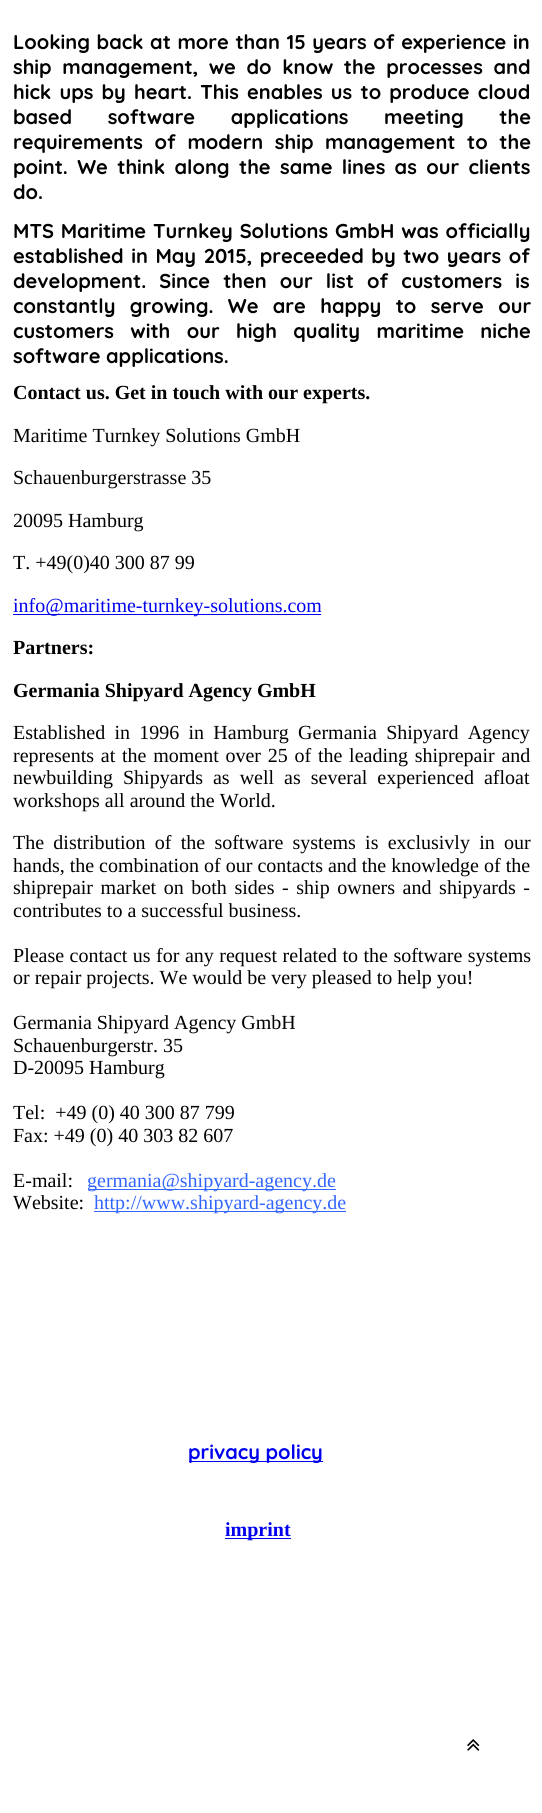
import math
import cairo


def write_spaced(ctx, x, y, s, letter, word):
	ctx.move_to(x, y)
	for ch in s:
		ctx.show_text(ch)
		ctx.rel_move_to(letter + word * (ch == ' '), 0)

def paste(ctx, path, x, y, w, h):
	ctx.save()
	ctx.set_source_surface(cairo.ImageSurface.create_from_png(path), x, y)
	ctx.rectangle(x, y, w, h)
	ctx.fill()
	ctx.restore()

def draw(ctx):
	ctx.set_source_rgb(1, 1, 1)
	ctx.paint()
	ctx.select_font_face('Quicksand', cairo.FONT_SLANT_NORMAL, cairo.FONT_WEIGHT_BOLD)
	ctx.set_font_size(20)
	ctx.set_source_rgb(0, 0, 0)
	write_spaced(ctx, 13, 49, 'Looking back at more than 15 years of experience in', 0, 1)
	write_spaced(ctx, 13, 74, 'ship management, we do know the processes and', 0, 5)
	write_spaced(ctx, 13, 99, 'hick ups by heart. This enables us to produce cloud', 0, 2.6)
	write_spaced(ctx, 13, 124, 'based software applications meeting the', 0, 30)
	write_spaced(ctx, 13, 149, 'requirements of modern ship management to the', 0, 6)
	write_spaced(ctx, 13, 174, 'point. We think along the same lines as our clients', 0, 3.75)
	ctx.move_to(13, 199)
	ctx.show_text('do.')
	write_spaced(ctx, 13, 238, 'MTS Maritime Turnkey Solutions GmbH was officially', 0, 1.25)
	write_spaced(ctx, 13, 263, 'established in May 2015, preceeded by two years of', 0, 2)
	write_spaced(ctx, 13, 288, 'development. Since then our list of customers is', 0, 7.5)
	write_spaced(ctx, 13, 313, 'constantly growing. We are happy to serve our', 0, 8.75)
	write_spaced(ctx, 13, 338, 'customers with our high quality maritime niche', 0, 10.75)
	ctx.move_to(13, 363)
	ctx.show_text('software applications.')
	ctx.select_font_face('Liberation Serif', cairo.FONT_SLANT_NORMAL, cairo.FONT_WEIGHT_BOLD)
	ctx.move_to(13, 399)
	ctx.show_text('Contact us. Get in touch with our experts.')
	ctx.select_font_face('Liberation Serif')
	for x, y, s in [
		(13, 442, 'Maritime Turnkey Solutions GmbH'),
		(13, 484, 'Schauenburgerstrasse 35'),
		(13, 527, '20095 Hamburg'),
		(13, 569, 'T. +49(0)40 300 87 99'),
	]:
		ctx.move_to(x, y)
		ctx.show_text(s)
	ctx.set_source_rgb(0, 0, 0.933)
	ctx.rectangle(13, 614, 308, 1)
	ctx.fill()
	ctx.move_to(13, 612)
	ctx.show_text('info@maritime-turnkey-solutions.com')
	ctx.select_font_face('Liberation Serif', cairo.FONT_SLANT_NORMAL, cairo.FONT_WEIGHT_BOLD)
	ctx.set_source_rgb(0, 0, 0)
	ctx.move_to(13, 654)
	ctx.show_text('Partners:')
	ctx.move_to(13, 697)
	ctx.show_text('Germania Shipyard Agency GmbH')
	ctx.select_font_face('Liberation Serif')
	write_spaced(ctx, 13, 739, 'Established in 1996 in Hamburg Germania Shipyard Agency', 0, 4.25)
	write_spaced(ctx, 13, 762, 'represents at the moment over 25 of the leading shiprepair and', 0, 1.75)
	write_spaced(ctx, 13, 784, 'newbuilding Shipyards as well as several experienced afloat', 0, 5)
	ctx.move_to(13, 807)
	ctx.show_text('workshops all around the World.')
	write_spaced(ctx, 13, 849, 'The distribution of the software systems is exclusivly in our', 0, 4.25)
	ctx.move_to(13, 872)
	ctx.show_text('hands, the combination of our contacts and the knowledge of the')
	write_spaced(ctx, 13, 894, 'shiprepair market on both sides - ship owners and shipyards -', 0, 2.6)
	ctx.move_to(13, 917)
	ctx.show_text('contributes to a successful business.')
	write_spaced(ctx, 13, 962, 'Please contact us for any request related to the software systems', 0, 0.5)
	for x, y, s in [
		(13, 984, 'or repair projects. We would be very pleased to help you!'),
		(13, 1029, 'Germania Shipyard Agency GmbH'),
		(13, 1052, 'Schauenburgerstr. 35'),
		(13, 1074, 'D-20095 Hamburg'),
		(13, 1119, 'Tel:  +49 (0) 40 300 87 799'),
		(13, 1142, 'Fax: +49 (0) 40 303 82 607'),
		(13, 1187, 'E-mail:'),
	]:
		ctx.move_to(x, y)
		ctx.show_text(s)
	ctx.set_source_rgb(0.2, 0.4, 1)
	ctx.rectangle(88, 1189, 248, 1)
	ctx.fill()
	ctx.move_to(87, 1187)
	ctx.show_text('germania@shipyard-agency.de')
	ctx.set_source_rgb(0, 0, 0)
	ctx.move_to(13, 1209)
	ctx.show_text('Website:')
	ctx.set_source_rgb(0.2, 0.4, 1)
	ctx.rectangle(94, 1211, 252, 1)
	ctx.fill()
	ctx.move_to(94, 1209)
	ctx.show_text('http://www.shipyard-agency.de')
	ctx.set_source_rgb(0, 0, 0.933)
	ctx.rectangle(189, 1461, 134, 1)
	ctx.fill()
	ctx.select_font_face('Quicksand', cairo.FONT_SLANT_NORMAL, cairo.FONT_WEIGHT_BOLD)
	ctx.move_to(188, 1459)
	ctx.show_text('privacy policy')
	ctx.rectangle(225, 1538, 66, 1)
	ctx.fill()
	ctx.select_font_face('Liberation Serif', cairo.FONT_SLANT_NORMAL, cairo.FONT_WEIGHT_BOLD)
	ctx.move_to(225, 1536)
	ctx.show_text('imprint')
	paste(ctx, 'media/1.png', 467, 1739, 13, 12)


surface = cairo.ImageSurface(cairo.FORMAT_RGB24, 542, 1813)
ctx = cairo.Context(surface)
options = cairo.FontOptions()
options.set_hint_metrics(cairo.HINT_METRICS_OFF)
options.set_hint_style(cairo.HINT_STYLE_NONE)
ctx.set_font_options(options)
ctx.set_miter_limit(4)
draw(ctx)
surface.write_to_png('image.png')
